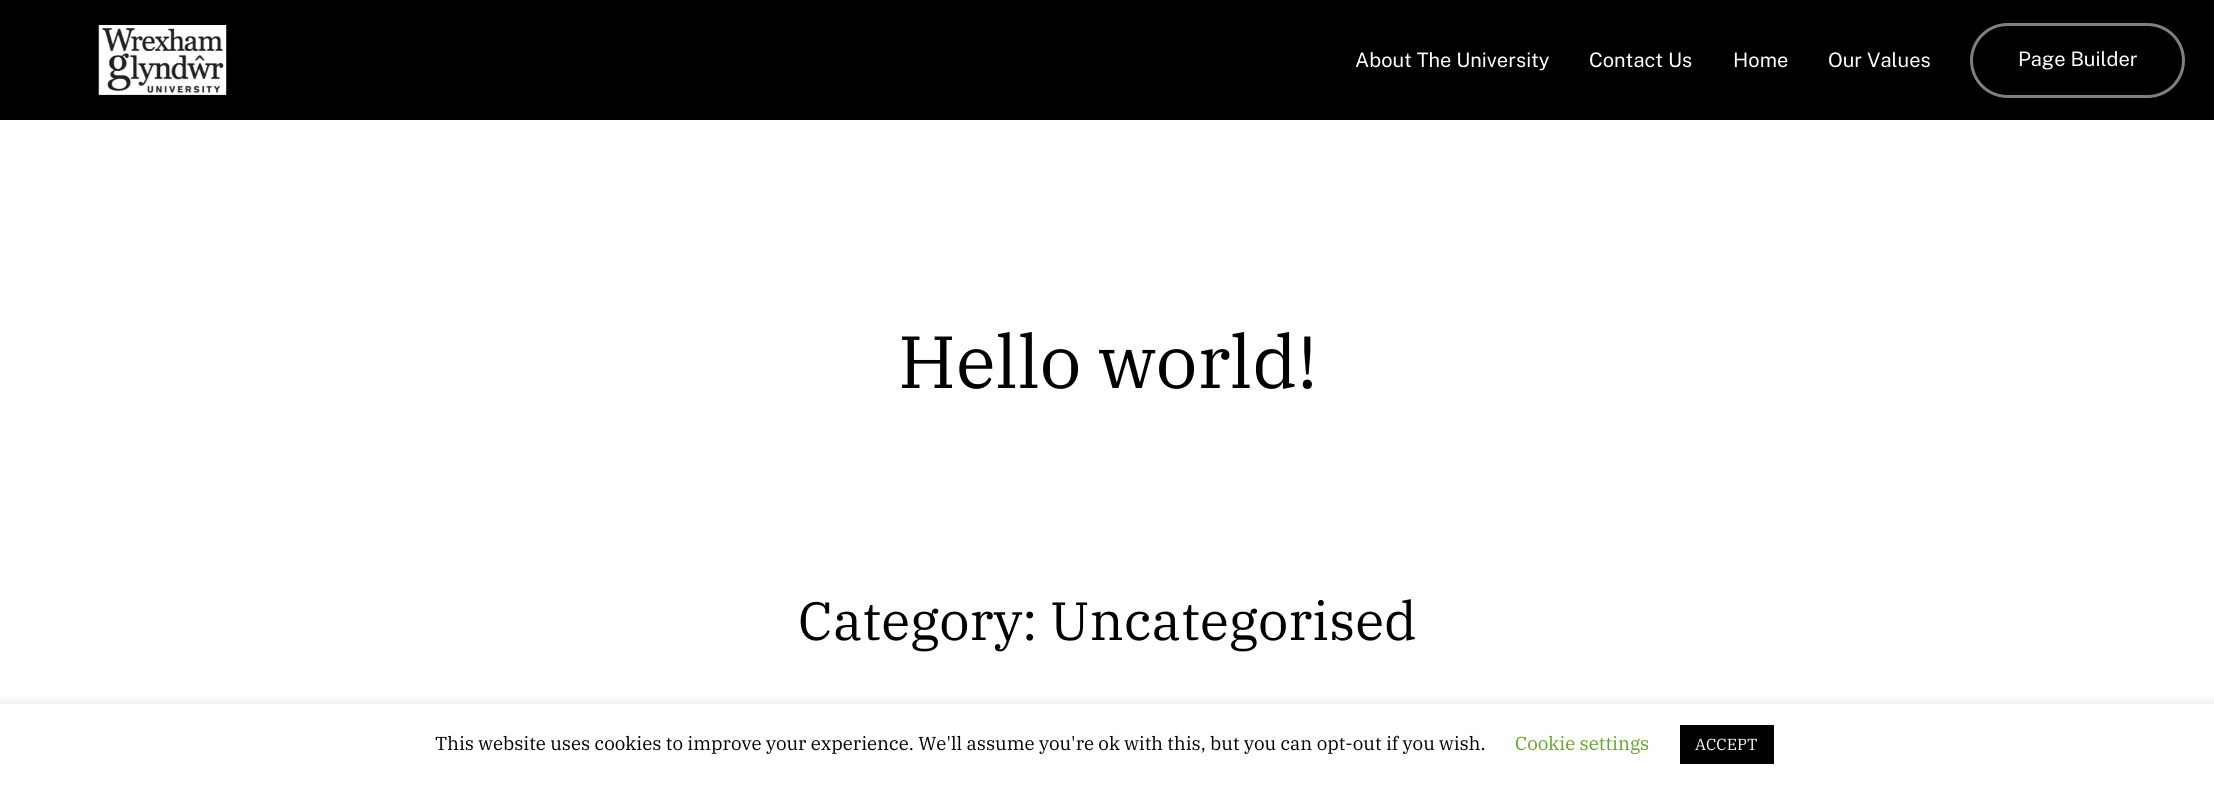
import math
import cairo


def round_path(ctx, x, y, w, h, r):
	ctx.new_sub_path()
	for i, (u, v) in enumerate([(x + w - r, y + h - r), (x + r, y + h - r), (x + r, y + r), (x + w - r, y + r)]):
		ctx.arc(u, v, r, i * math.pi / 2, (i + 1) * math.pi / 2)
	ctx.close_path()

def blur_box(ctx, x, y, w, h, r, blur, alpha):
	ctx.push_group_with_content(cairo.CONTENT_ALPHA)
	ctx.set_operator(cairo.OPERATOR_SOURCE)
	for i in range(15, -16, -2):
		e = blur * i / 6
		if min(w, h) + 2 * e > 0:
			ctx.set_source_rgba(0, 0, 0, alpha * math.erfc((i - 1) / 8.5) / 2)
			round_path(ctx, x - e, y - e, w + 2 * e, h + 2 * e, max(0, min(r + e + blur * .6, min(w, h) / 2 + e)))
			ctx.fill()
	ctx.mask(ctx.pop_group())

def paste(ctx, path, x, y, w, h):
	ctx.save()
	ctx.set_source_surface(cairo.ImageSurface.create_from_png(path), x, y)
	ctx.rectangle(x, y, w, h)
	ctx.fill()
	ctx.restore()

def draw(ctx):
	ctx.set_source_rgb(1, 1, 1)
	ctx.paint()
	ctx.set_source_rgb(0, 0, 0)
	ctx.rectangle(0, 0, 2214, 120)
	ctx.fill()
	paste(ctx, 'media/1.png', 98, 25, 129, 70)
	ctx.select_font_face('Public Sans')
	ctx.set_font_size(20)
	ctx.set_source_rgb(1, 1, 1)
	for x, y, s in [
		(1355, 67, 'About The University'),
		(1589, 67, 'Contact Us'),
		(1733, 67, 'Home'),
		(1828, 67, 'Our Values'),
	]:
		ctx.move_to(x, y)
		ctx.show_text(s)
	round_path(ctx, 1971.5, 24.5, 212, 72, 36)
	ctx.set_source_rgb(0.502, 0.502, 0.502)
	ctx.set_line_width(3)
	ctx.stroke()
	ctx.set_source_rgb(1, 1, 1)
	ctx.move_to(2018, 66)
	ctx.show_text('Page Builder')
	ctx.select_font_face('IBM Plex Serif')
	ctx.set_font_size(73.75)
	ctx.set_source_rgb(0, 0, 0)
	ctx.move_to(898, 388)
	ctx.show_text('Hello world!')
	ctx.set_font_size(53.75)
	ctx.move_to(798, 640)
	ctx.show_text('Category: Uncategorised')
	ctx.save()
	ctx.rectangle(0, 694, 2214, 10)
	ctx.clip()
	ctx.set_source_rgb(0.675, 0.671, 0.671)
	blur_box(ctx, 0, 703, 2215, 81, 0, 6, 0.3)
	ctx.restore()
	ctx.set_font_size(18.75)
	ctx.move_to(435, 750)
	ctx.show_text('This website uses cookies to improve your experience. We\'ll assume you\'re ok with this, but you can opt-out if you wish.')
	ctx.set_source_rgb(0.384, 0.639, 0.161)
	ctx.move_to(1515, 750)
	ctx.show_text('Cookie settings')
	ctx.set_source_rgb(0, 0, 0)
	ctx.rectangle(1680, 725, 94, 39)
	ctx.fill()
	ctx.set_font_size(16)
	ctx.set_source_rgb(1, 1, 1)
	ctx.move_to(1695, 750)
	ctx.show_text('ACCEPT')


surface = cairo.ImageSurface(cairo.FORMAT_RGB24, 2214, 785)
ctx = cairo.Context(surface)
options = cairo.FontOptions()
options.set_hint_metrics(cairo.HINT_METRICS_OFF)
options.set_hint_style(cairo.HINT_STYLE_NONE)
ctx.set_font_options(options)
ctx.set_miter_limit(4)
draw(ctx)
surface.write_to_png('image.png')
